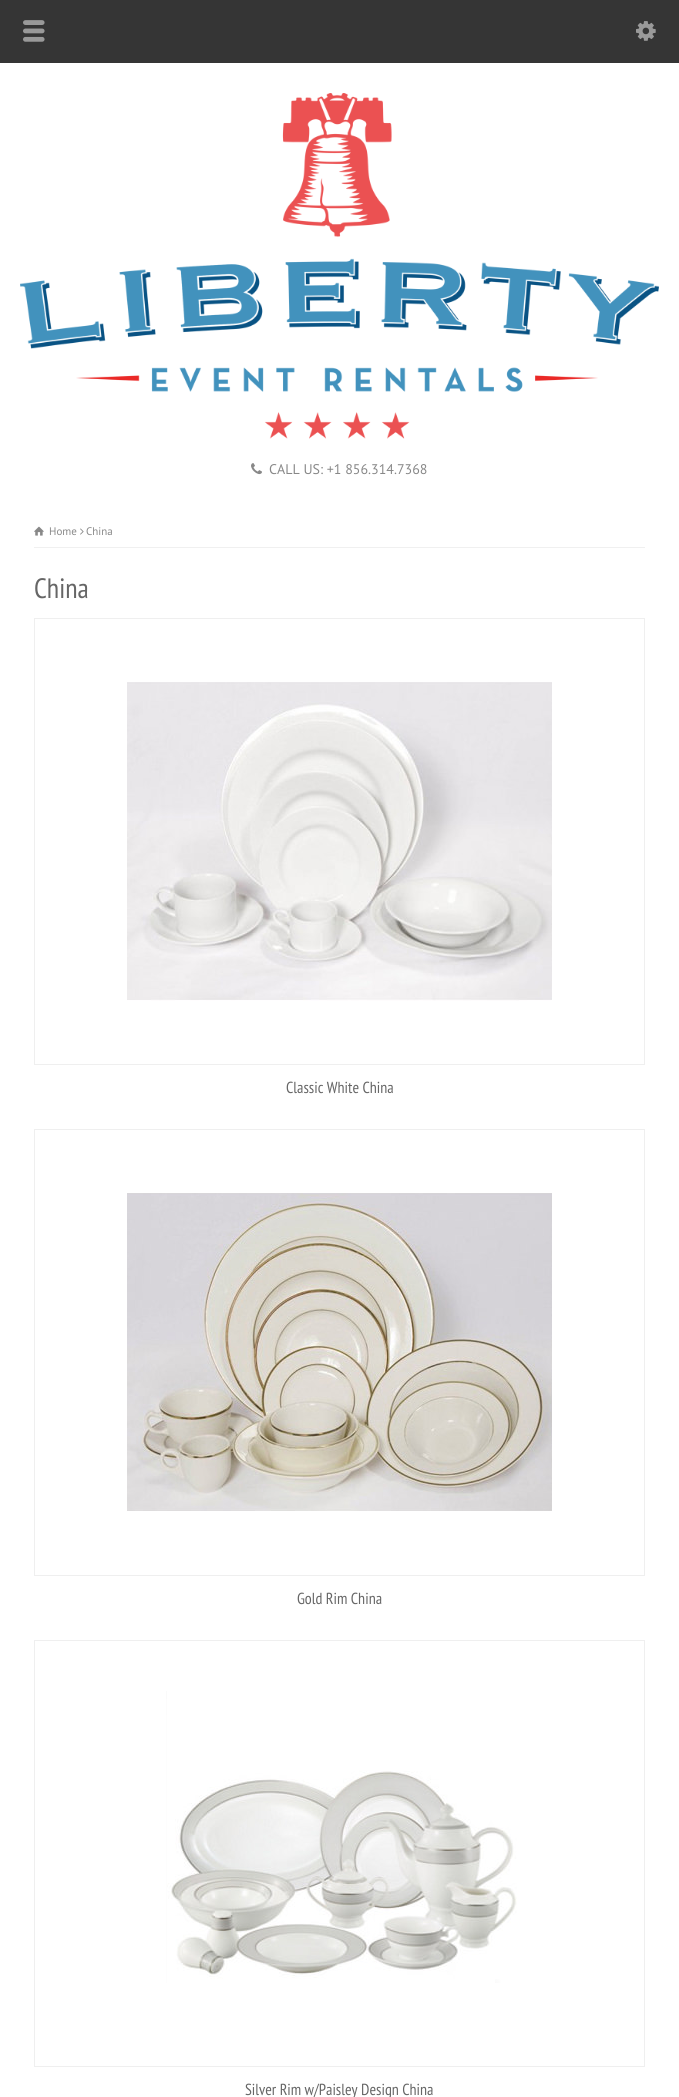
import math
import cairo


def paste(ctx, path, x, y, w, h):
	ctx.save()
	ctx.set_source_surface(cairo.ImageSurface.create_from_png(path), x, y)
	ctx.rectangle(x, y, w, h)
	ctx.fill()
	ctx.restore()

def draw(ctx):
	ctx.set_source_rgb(1, 1, 1)
	ctx.paint()
	ctx.set_source_rgb(0.208, 0.208, 0.208)
	ctx.rectangle(0, 0, 679, 63)
	ctx.fill()
	paste(ctx, 'media/1.png', 23, 20, 22, 22)
	paste(ctx, 'media/2.png', 636, 21, 20, 20)
	paste(ctx, 'media/3.png', 20, 93, 639, 346)
	paste(ctx, 'media/4.png', 251, 463, 11, 12)
	ctx.select_font_face('PT Sans')
	ctx.set_font_size(14)
	ctx.set_source_rgb(0.533, 0.533, 0.533)
	ctx.move_to(269, 474)
	ctx.show_text('CALL US: +1 856.314.7368')
	ctx.set_source_rgb(0.941, 0.941, 0.941)
	ctx.rectangle(34, 547, 611, 1)
	ctx.fill()
	paste(ctx, 'media/5.png', 34, 526, 10, 10)
	ctx.set_font_size(11)
	ctx.set_source_rgb(0.533, 0.533, 0.533)
	ctx.move_to(49, 535)
	ctx.show_text('Home')
	paste(ctx, 'media/6.png', 80, 528, 4, 7)
	ctx.move_to(86, 535)
	ctx.show_text('China')
	ctx.select_font_face('PT Sans Narrow')
	ctx.set_font_size(28)
	ctx.set_source_rgb(0.4, 0.4, 0.4)
	ctx.move_to(34, 598)
	ctx.show_text('China')
	ctx.rectangle(34.5, 618.5, 610, 446)
	ctx.set_source_rgb(0.937, 0.937, 0.937)
	ctx.set_line_width(1)
	ctx.stroke()
	paste(ctx, 'media/7.png', 127, 682, 425, 319)
	ctx.set_font_size(16)
	ctx.set_source_rgb(0.4, 0.4, 0.4)
	ctx.move_to(286, 1093)
	ctx.show_text('Classic White China')
	ctx.rectangle(34.5, 1129.5, 610, 446)
	ctx.set_source_rgb(0.937, 0.937, 0.937)
	ctx.stroke()
	paste(ctx, 'media/8.png', 127, 1193, 425, 318)
	ctx.set_source_rgb(0.4, 0.4, 0.4)
	ctx.move_to(297, 1604)
	ctx.show_text('Gold Rim China')
	ctx.rectangle(34.5, 1640.5, 610, 426)
	ctx.set_source_rgb(0.937, 0.937, 0.937)
	ctx.stroke()
	paste(ctx, 'media/9.png', 166, 1691, 351, 292)
	ctx.set_source_rgb(0.4, 0.4, 0.4)
	ctx.move_to(245, 2095)
	ctx.show_text('Silver Rim w/Paisley Design China')


surface = cairo.ImageSurface(cairo.FORMAT_RGB24, 679, 2097)
ctx = cairo.Context(surface)
options = cairo.FontOptions()
options.set_hint_metrics(cairo.HINT_METRICS_OFF)
options.set_hint_style(cairo.HINT_STYLE_NONE)
ctx.set_font_options(options)
ctx.set_miter_limit(4)
draw(ctx)
surface.write_to_png('image.png')
